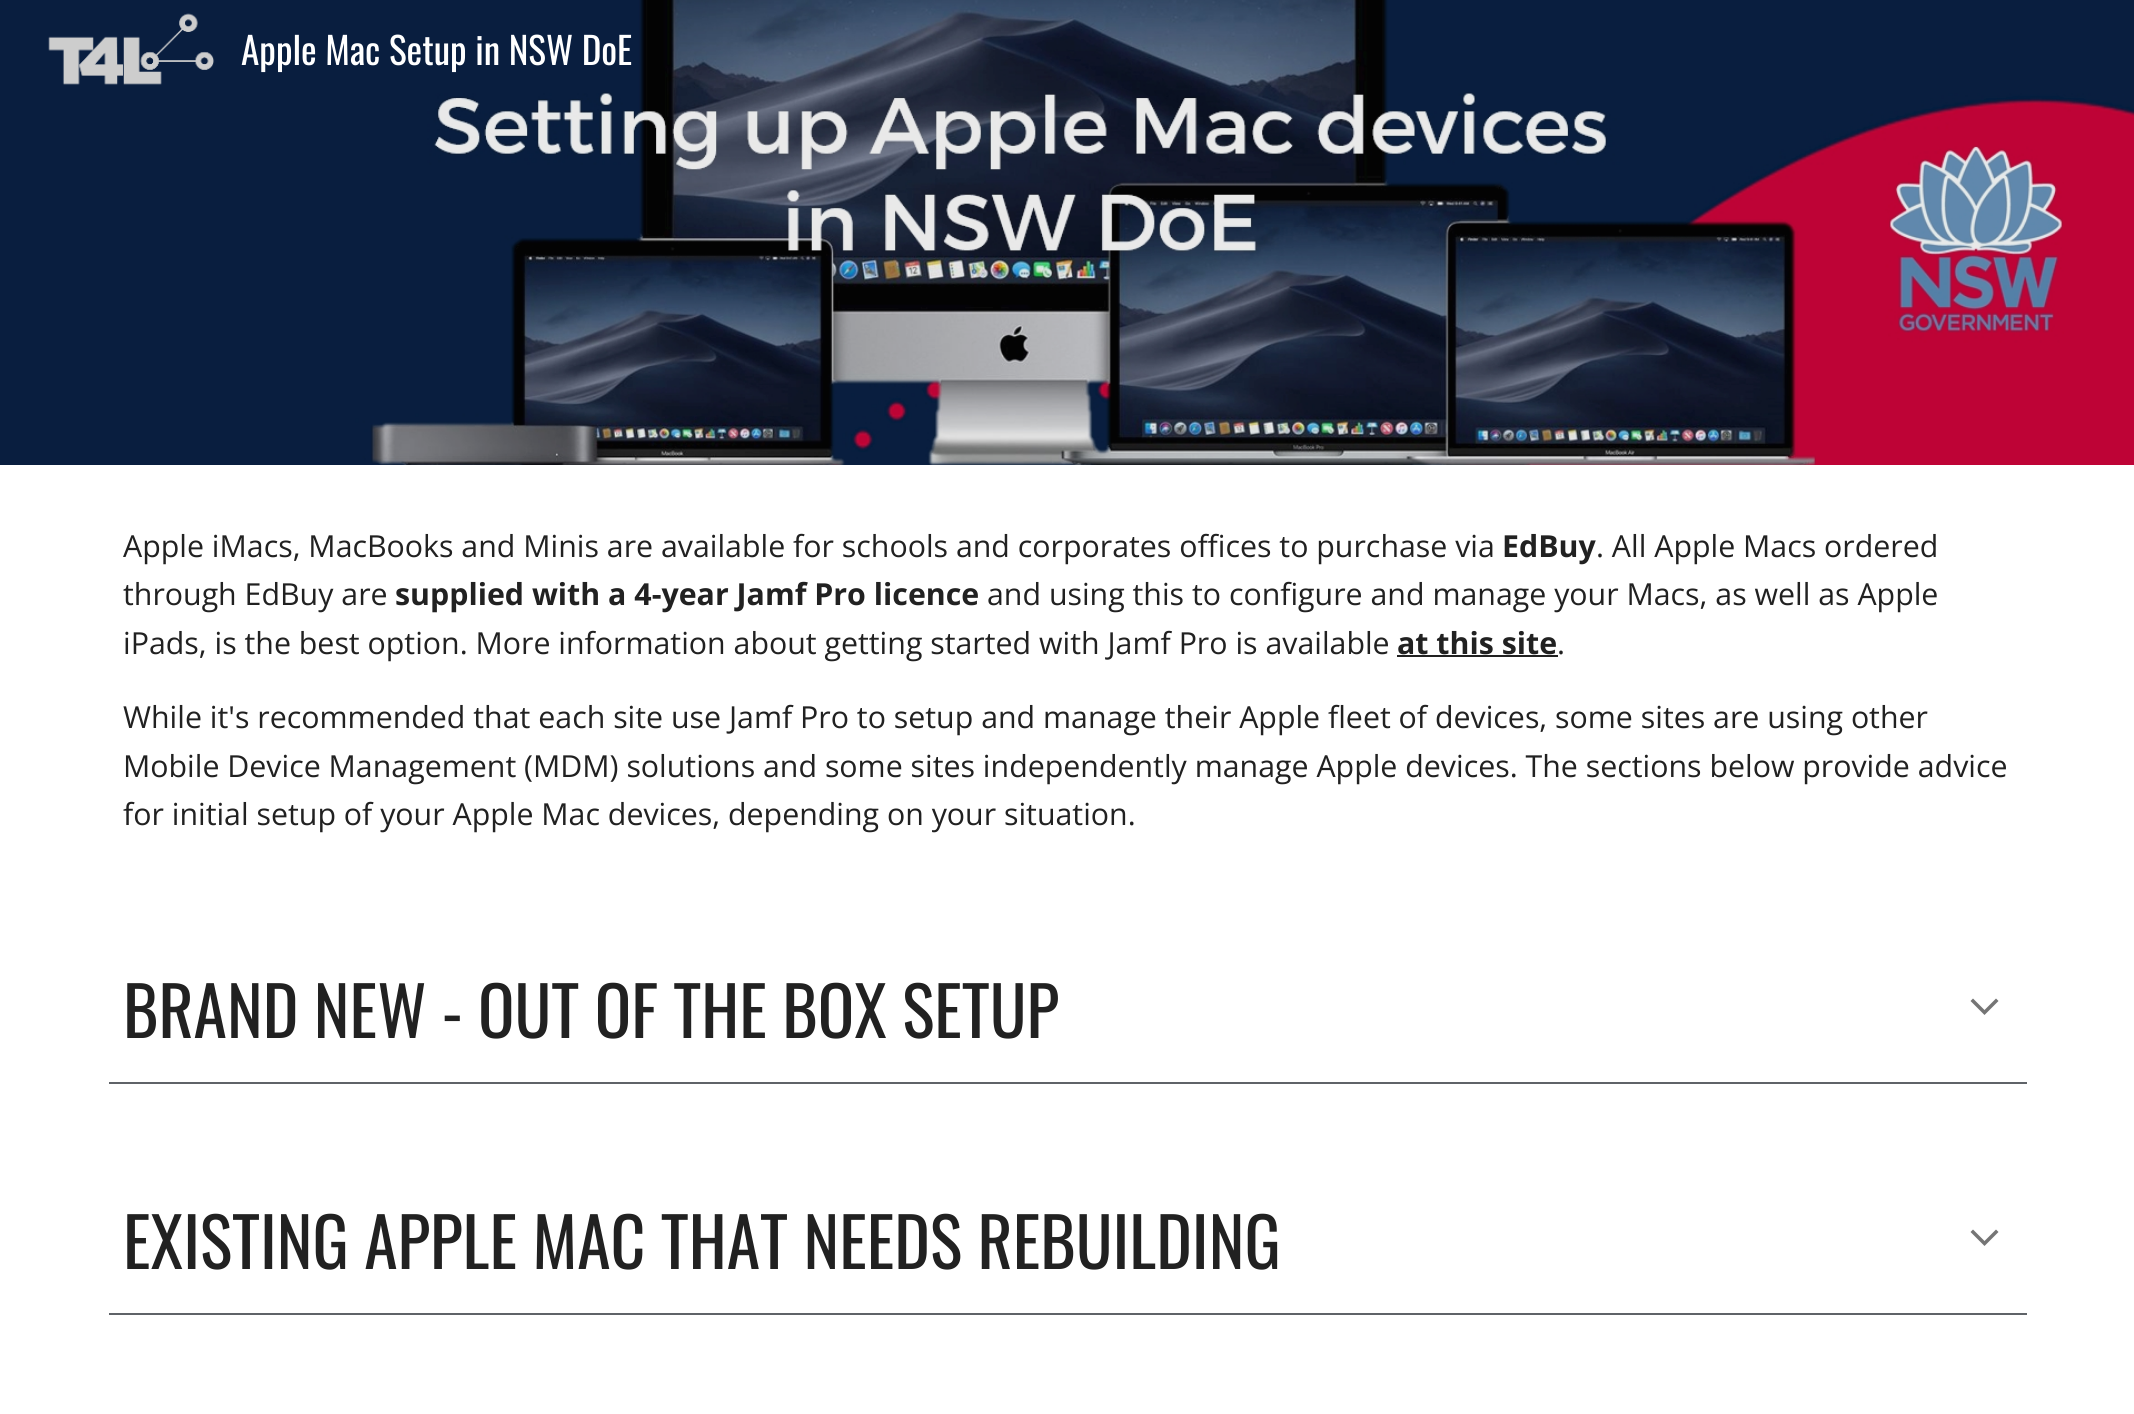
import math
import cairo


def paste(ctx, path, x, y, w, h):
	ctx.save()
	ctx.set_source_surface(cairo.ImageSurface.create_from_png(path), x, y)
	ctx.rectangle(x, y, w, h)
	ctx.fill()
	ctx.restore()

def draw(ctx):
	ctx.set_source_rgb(1, 1, 1)
	ctx.paint()
	paste(ctx, 'media/2.png', 0, 0, 2134, 465)
	paste(ctx, 'media/1.png', 48, 13, 167, 72)
	ctx.select_font_face('Oswald')
	ctx.set_font_size(37.25)
	ctx.set_source_rgb(1, 1, 1)
	ctx.move_to(241, 65)
	ctx.show_text('Apple Mac Setup in NSW DoE')
	ctx.select_font_face('Open Sans')
	ctx.set_font_size(30.33)
	ctx.set_source_rgb(0.129, 0.129, 0.129)
	ctx.move_to(123, 557)
	ctx.show_text('Apple iMacs, MacBooks and Minis are available for schools and corporates offices to purchase via')
	ctx.select_font_face('Open Sans', cairo.FONT_SLANT_NORMAL, cairo.FONT_WEIGHT_BOLD)
	ctx.move_to(1502, 557)
	ctx.show_text('EdBuy')
	ctx.select_font_face('Open Sans')
	ctx.move_to(1596, 557)
	ctx.show_text('. All Apple Macs ordered')
	ctx.move_to(123, 605)
	ctx.show_text('through EdBuy are')
	ctx.select_font_face('Open Sans', cairo.FONT_SLANT_NORMAL, cairo.FONT_WEIGHT_BOLD)
	ctx.move_to(395, 605)
	ctx.show_text('supplied with a 4-year Jamf Pro licence')
	ctx.select_font_face('Open Sans')
	ctx.move_to(987, 605)
	ctx.show_text('and using this to configure and manage your Macs, as well as Apple')
	ctx.move_to(123, 654)
	ctx.show_text('iPads, is the best option. More information about getting started with Jamf Pro is available')
	ctx.select_font_face('Open Sans', cairo.FONT_SLANT_NORMAL, cairo.FONT_WEIGHT_BOLD)
	ctx.move_to(1397, 654)
	ctx.show_text('at this site')
	ctx.rectangle(1397, 655, 161, 2)
	ctx.fill()
	ctx.select_font_face('Open Sans')
	for x, y, s in [
		(1557, 654, '.'),
		(123, 728, 'While it\'s recommended that each site use Jamf Pro to setup and manage their Apple fleet of devices, some sites are using other'),
		(123, 777, 'Mobile Device Management (MDM) solutions and some sites independently manage Apple devices. The sections below provide advice'),
		(123, 825, 'for initial setup of your Apple Mac devices, depending on your situation.'),
	]:
		ctx.move_to(x, y)
		ctx.show_text(s)
	ctx.set_source_rgb(0.373, 0.388, 0.408)
	ctx.rectangle(109, 1082, 1918, 2)
	ctx.fill()
	ctx.select_font_face('Oswald')
	ctx.set_font_size(67.7)
	ctx.set_source_rgb(0.129, 0.129, 0.129)
	ctx.move_to(123, 1038)
	ctx.show_text('BRAND NEW - OUT OF THE BOX SETUP')
	ctx.set_source_rgb(0.459, 0.459, 0.459)
	ctx.new_path()
	ctx.move_to(1973, 998.5)
	ctx.line_to(1970.5, 1001)
	ctx.line_to(1984.5, 1015)
	ctx.line_to(1998.5, 1001)
	ctx.line_to(1996, 998.5)
	ctx.line_to(1984.5, 1010)
	ctx.fill()
	ctx.set_source_rgb(0.373, 0.388, 0.408)
	ctx.rectangle(109, 1313, 1918, 2)
	ctx.fill()
	ctx.set_source_rgb(0.129, 0.129, 0.129)
	ctx.move_to(123, 1269)
	ctx.show_text('EXISTING APPLE MAC THAT NEEDS REBUILDING')
	ctx.set_source_rgb(0.459, 0.459, 0.459)
	ctx.new_path()
	ctx.move_to(1973, 1229.5)
	ctx.line_to(1970.5, 1232)
	ctx.line_to(1984.5, 1246)
	ctx.line_to(1998.5, 1232)
	ctx.line_to(1996, 1229.5)
	ctx.line_to(1984.5, 1241)
	ctx.fill()


surface = cairo.ImageSurface(cairo.FORMAT_RGB24, 2134, 1414)
ctx = cairo.Context(surface)
options = cairo.FontOptions()
options.set_hint_metrics(cairo.HINT_METRICS_OFF)
options.set_hint_style(cairo.HINT_STYLE_NONE)
ctx.set_font_options(options)
ctx.set_miter_limit(4)
draw(ctx)
surface.write_to_png('image.png')
